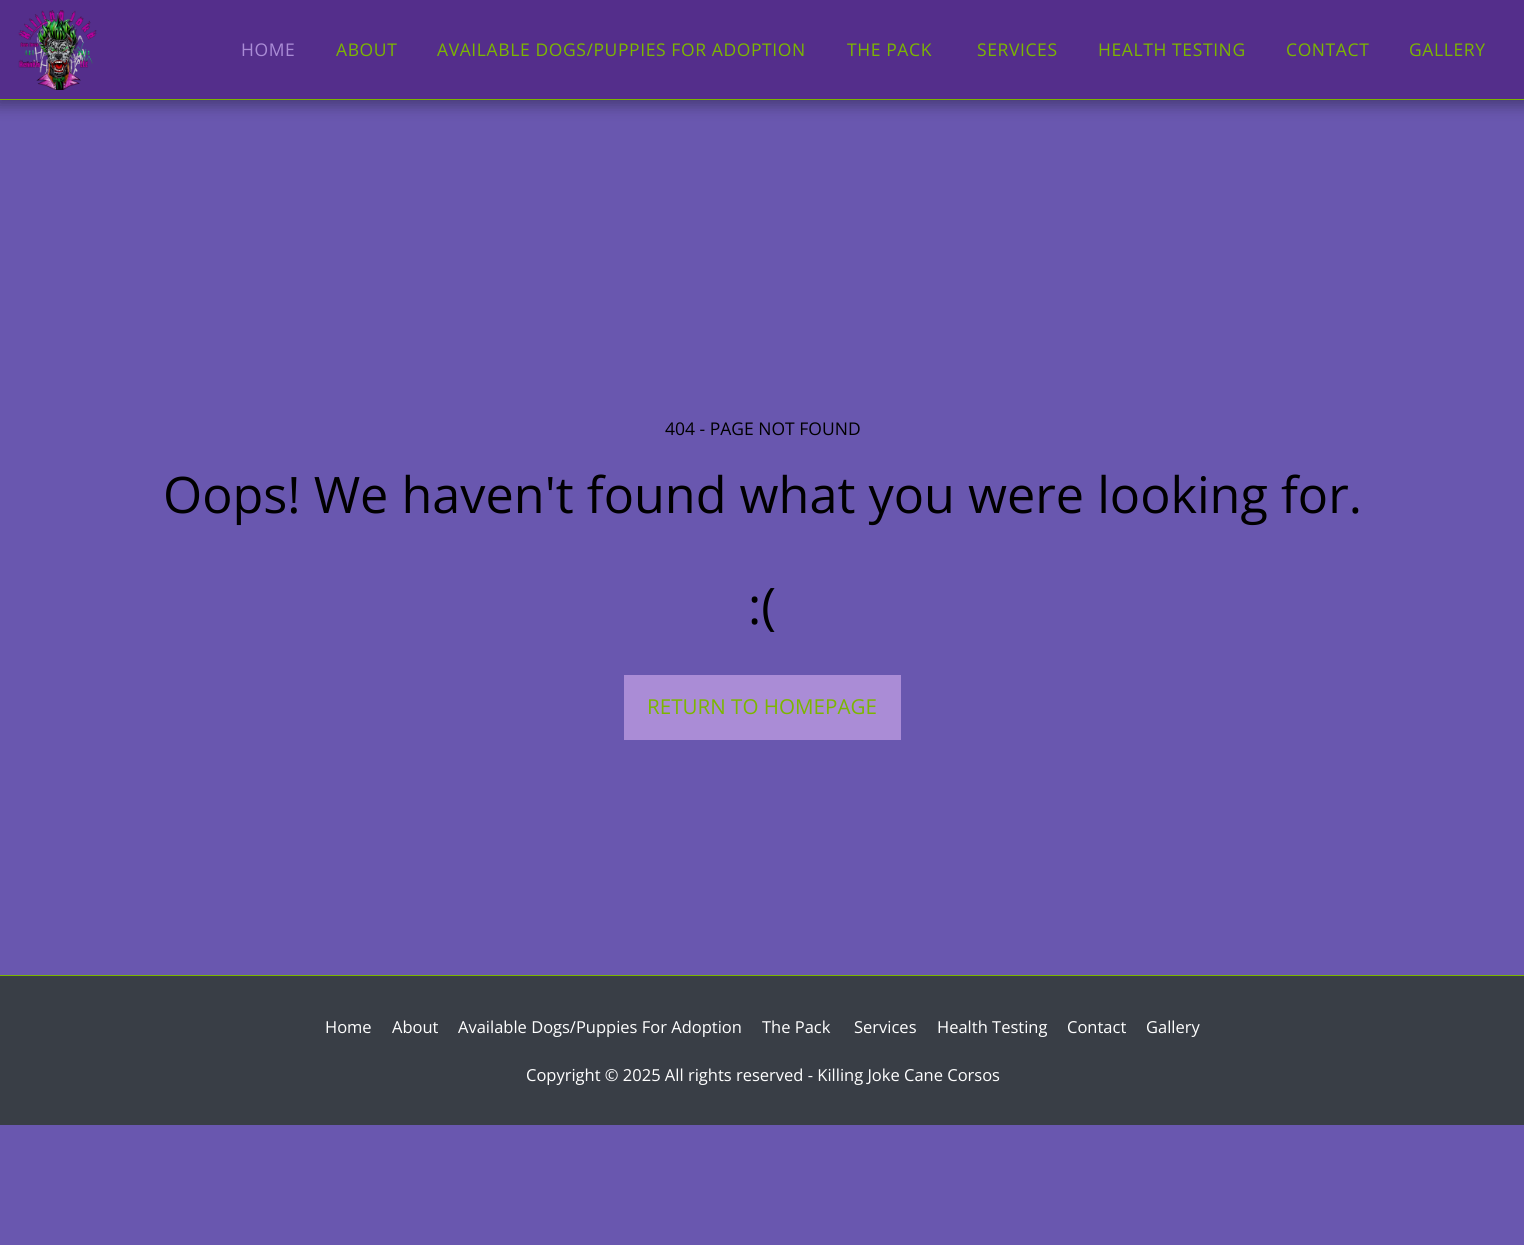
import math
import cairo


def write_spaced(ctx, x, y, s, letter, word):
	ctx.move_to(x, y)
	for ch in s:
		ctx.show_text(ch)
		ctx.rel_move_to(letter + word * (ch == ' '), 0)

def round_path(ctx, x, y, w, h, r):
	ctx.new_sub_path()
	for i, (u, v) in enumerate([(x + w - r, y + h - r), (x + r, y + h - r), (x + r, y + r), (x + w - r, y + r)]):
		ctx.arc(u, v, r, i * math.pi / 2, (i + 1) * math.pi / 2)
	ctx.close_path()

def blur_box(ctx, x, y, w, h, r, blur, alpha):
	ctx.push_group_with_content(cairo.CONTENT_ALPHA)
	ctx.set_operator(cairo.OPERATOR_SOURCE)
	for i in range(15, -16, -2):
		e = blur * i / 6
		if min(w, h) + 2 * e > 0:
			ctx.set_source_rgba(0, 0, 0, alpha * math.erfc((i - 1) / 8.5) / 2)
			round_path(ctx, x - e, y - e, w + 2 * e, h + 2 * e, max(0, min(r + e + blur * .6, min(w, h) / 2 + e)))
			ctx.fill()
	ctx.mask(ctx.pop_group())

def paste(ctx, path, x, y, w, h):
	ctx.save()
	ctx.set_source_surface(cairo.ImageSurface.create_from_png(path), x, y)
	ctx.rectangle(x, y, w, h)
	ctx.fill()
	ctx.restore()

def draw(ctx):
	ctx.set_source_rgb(0.412, 0.341, 0.686)
	ctx.paint()
	ctx.set_source_rgb(0, 0, 0)
	blur_box(ctx, -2, 0, 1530, 105, 0, 7.5, 0.35)
	ctx.set_source_rgb(0.329, 0.18, 0.545)
	ctx.rectangle(0, 0, 1524, 99)
	ctx.fill()
	ctx.set_source_rgb(0.486, 0.714, 0)
	ctx.rectangle(0, 99, 1524, 1)
	ctx.fill()
	paste(ctx, 'media/1.png', 18, 10, 79, 80)
	ctx.select_font_face('Open Sans')
	ctx.set_font_size(17.5)
	ctx.set_source_rgb(0.667, 0.549, 0.839)
	write_spaced(ctx, 241, 56, 'HOME', 0.6, 0)
	ctx.set_source_rgb(0.486, 0.714, 0)
	for x, y, s in [
		(336, 56, 'ABOUT'),
		(437, 56, 'AVAILABLE DOGS/PUPPIES FOR ADOPTION'),
		(847, 56, 'THE PACK'),
		(977, 56, 'SERVICES'),
		(1098, 56, 'HEALTH TESTING'),
		(1286, 56, 'CONTACT'),
		(1409, 56, 'GALLERY'),
	]:
		write_spaced(ctx, x, y, s, 0.6, 0)
	ctx.set_source_rgb(0, 0, 0)
	ctx.move_to(665, 435)
	ctx.show_text('404 - PAGE NOT FOUND')
	ctx.set_font_size(50.35)
	ctx.move_to(163, 513)
	ctx.show_text('Oops! We haven\'t found what you were looking for.')
	ctx.move_to(748, 624)
	ctx.show_text(':(')
	ctx.set_source_rgb(0.667, 0.549, 0.839)
	ctx.rectangle(624, 675, 277, 65)
	ctx.fill()
	ctx.set_font_size(20.6)
	ctx.set_source_rgb(0.486, 0.714, 0)
	ctx.move_to(647, 714)
	ctx.show_text('RETURN TO HOMEPAGE')
	ctx.rectangle(0, 975, 1524, 1)
	ctx.fill()
	ctx.set_source_rgb(0.224, 0.243, 0.275)
	ctx.rectangle(0, 976, 1524, 149)
	ctx.fill()
	ctx.set_font_size(16.5)
	ctx.set_source_rgb(1, 1, 1)
	for x, y, s in [
		(325, 1033, 'Home'),
		(392, 1033, 'About'),
		(458, 1033, 'Available Dogs/Puppies For Adoption'),
		(762, 1033, 'The Pack'),
		(854, 1033, 'Services'),
		(937, 1033, 'Health Testing'),
		(1067, 1033, 'Contact'),
		(1146, 1033, 'Gallery'),
		(526, 1081, 'Copyright © 2025 All rights reserved - Killing Joke Cane Corsos'),
	]:
		ctx.move_to(x, y)
		ctx.show_text(s)


surface = cairo.ImageSurface(cairo.FORMAT_RGB24, 1524, 1245)
ctx = cairo.Context(surface)
options = cairo.FontOptions()
options.set_hint_metrics(cairo.HINT_METRICS_OFF)
options.set_hint_style(cairo.HINT_STYLE_NONE)
ctx.set_font_options(options)
ctx.set_miter_limit(4)
draw(ctx)
surface.write_to_png('image.png')
